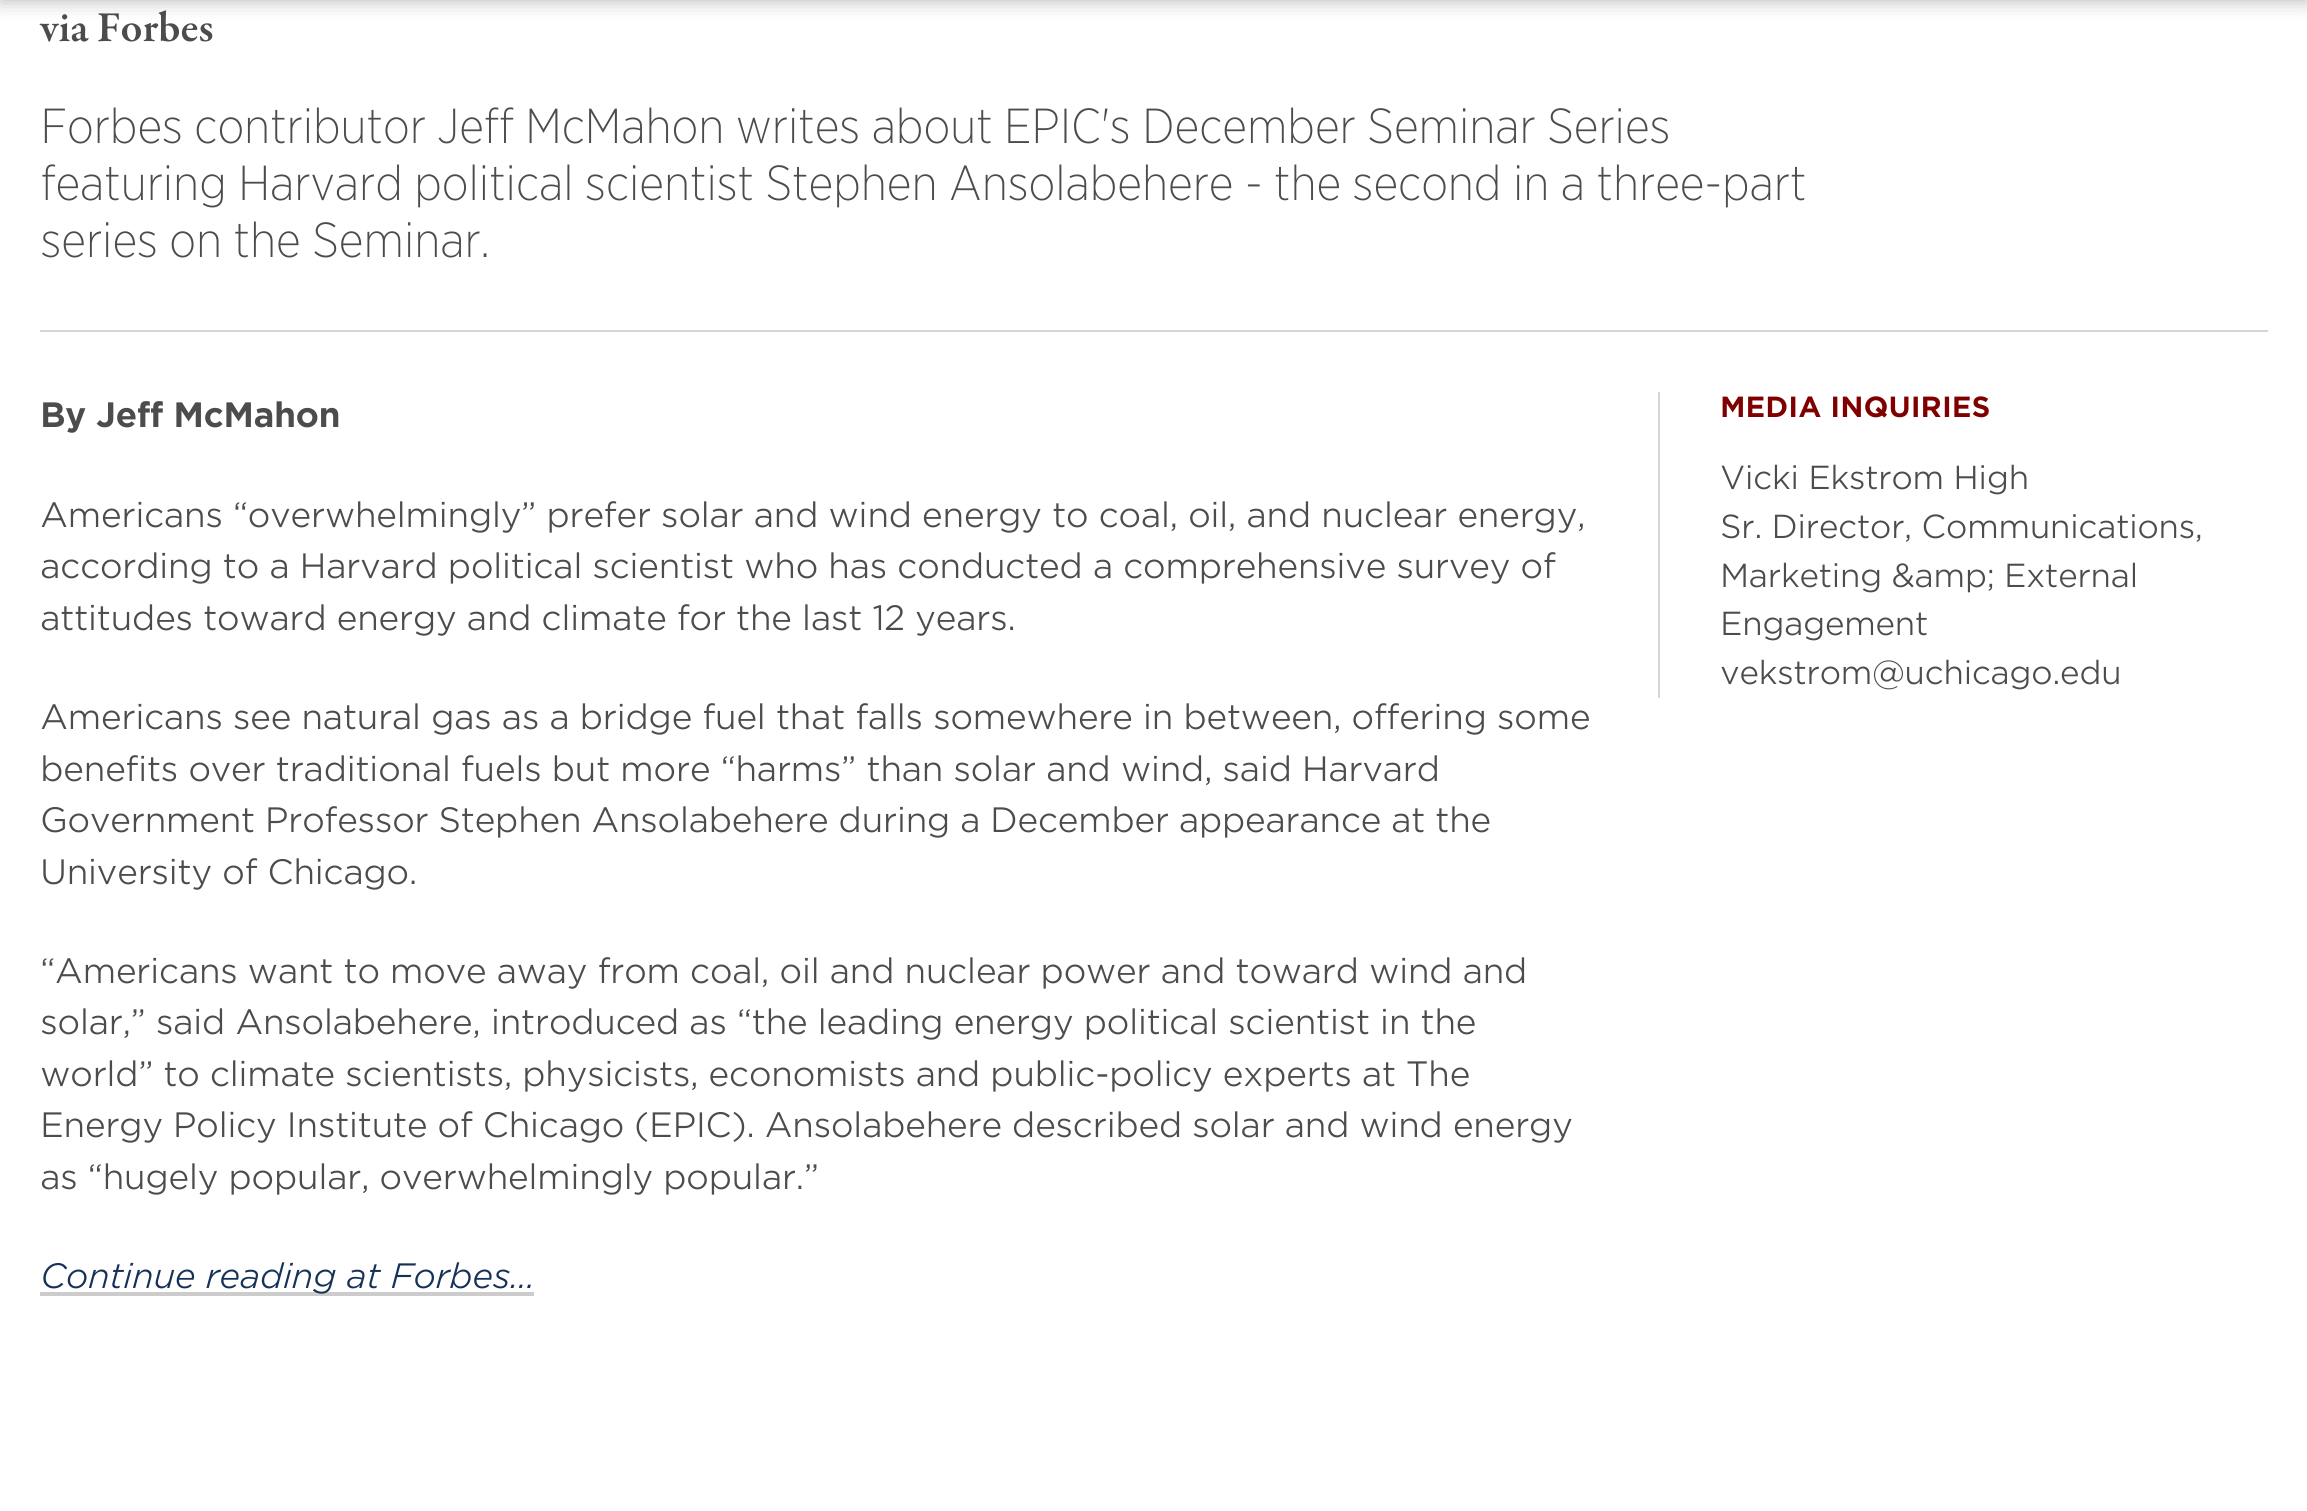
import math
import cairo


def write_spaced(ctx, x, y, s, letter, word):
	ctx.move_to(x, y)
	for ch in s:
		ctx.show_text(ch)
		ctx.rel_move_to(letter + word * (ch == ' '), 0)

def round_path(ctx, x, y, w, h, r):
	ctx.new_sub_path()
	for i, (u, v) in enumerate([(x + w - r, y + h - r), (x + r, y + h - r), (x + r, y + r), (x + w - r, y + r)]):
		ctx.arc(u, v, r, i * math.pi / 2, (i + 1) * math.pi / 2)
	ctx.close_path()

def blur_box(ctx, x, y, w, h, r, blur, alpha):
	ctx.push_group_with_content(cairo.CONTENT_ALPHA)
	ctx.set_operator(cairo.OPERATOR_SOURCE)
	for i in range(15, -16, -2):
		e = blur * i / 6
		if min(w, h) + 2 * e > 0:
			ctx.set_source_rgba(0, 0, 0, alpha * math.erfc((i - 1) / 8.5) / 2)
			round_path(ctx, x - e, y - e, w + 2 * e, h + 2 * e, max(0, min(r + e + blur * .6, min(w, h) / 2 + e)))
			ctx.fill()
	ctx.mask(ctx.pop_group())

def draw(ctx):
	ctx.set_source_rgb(1, 1, 1)
	ctx.paint()
	ctx.set_source_rgb(0, 0, 0)
	blur_box(ctx, 0, -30, 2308, 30, 0, 10, 0.3)
	ctx.select_font_face('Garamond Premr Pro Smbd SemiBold')
	ctx.set_font_size(43.5)
	ctx.set_source_rgb(0.298, 0.298, 0.298)
	ctx.move_to(40, 41)
	ctx.show_text('via Forbes')
	ctx.select_font_face('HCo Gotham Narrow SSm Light')
	ctx.set_font_size(47.25)
	for x, y, s in [
		(40, 143, 'Forbes contributor Jeff McMahon writes about EPIC\'s December Seminar Series'),
		(40, 200, 'featuring Harvard political scientist Stephen Ansolabehere - the second in a three-part'),
		(40, 257, 'series on the Seminar.'),
	]:
		write_spaced(ctx, x, y, s, -1, 0)
	ctx.set_source_rgb(0.839, 0.839, 0.808)
	ctx.rectangle(40, 330, 2228, 2)
	ctx.fill()
	ctx.select_font_face('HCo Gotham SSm', cairo.FONT_SLANT_NORMAL, cairo.FONT_WEIGHT_BOLD)
	ctx.set_font_size(33.85)
	ctx.set_source_rgb(0.298, 0.298, 0.298)
	write_spaced(ctx, 40, 427, 'By Jeff McMahon', -0.6, 0)
	ctx.select_font_face('HCo Gotham SSm Light')
	for x, y, s in [
		(40, 527, 'Americans “overwhelmingly” prefer solar and wind energy to coal, oil, and nuclear energy,'),
		(40, 578, 'according to a Harvard political scientist who has conducted a comprehensive survey of'),
		(40, 630, 'attitudes toward energy and climate for the last 12 years.'),
		(40, 729, 'Americans see natural gas as a bridge fuel that falls somewhere in between, offering some'),
		(40, 781, 'benefits over traditional fuels but more “harms” than solar and wind, said Harvard'),
	]:
		write_spaced(ctx, x, y, s, -0.6, 0)
	write_spaced(ctx, 40, 832, 'Government Professor Stephen Ansolabehere during a December appearance at the', -0.6, -0.25)
	for x, y, s in [
		(40, 884, 'University of Chicago.'),
		(40, 983, '“Americans want to move away from coal, oil and nuclear power and toward wind and'),
		(40, 1034, 'solar,” said Ansolabehere, introduced as “the leading energy political scientist in the'),
	]:
		write_spaced(ctx, x, y, s, -0.6, 0)
	write_spaced(ctx, 40, 1086, 'world” to climate scientists, physicists, economists and public-policy experts at The', -0.6, -0.1)
	write_spaced(ctx, 40, 1137, 'Energy Policy Institute of Chicago (EPIC). Ansolabehere described solar and wind energy', -0.6, -0.1)
	write_spaced(ctx, 40, 1189, 'as “hugely popular, overwhelmingly popular.”', -0.6, 0)
	ctx.set_source_rgb(0.8, 0.8, 0.8)
	ctx.rectangle(40, 1292, 494, 4)
	ctx.fill()
	ctx.select_font_face('HCo Gotham SSm Light', cairo.FONT_SLANT_ITALIC)
	ctx.set_source_rgb(0.086, 0.196, 0.349)
	write_spaced(ctx, 40, 1288, 'Continue reading at Forbes…', -0.6, 0)
	ctx.set_source_rgb(0.839, 0.839, 0.808)
	ctx.rectangle(1658, 392, 2, 306)
	ctx.fill()
	ctx.select_font_face('HCo Gotham SSm', cairo.FONT_SLANT_NORMAL, cairo.FONT_WEIGHT_BOLD)
	ctx.set_font_size(28)
	ctx.set_source_rgb(0.502, 0, 0)
	ctx.move_to(1720, 417)
	ctx.show_text('MEDIA INQUIRIES')
	ctx.select_font_face('HCo Gotham SSm Light')
	ctx.set_font_size(32)
	ctx.set_source_rgb(0.298, 0.298, 0.298)
	for x, y, s in [
		(1720, 489, 'Vicki Ekstrom High'),
		(1720, 538, 'Sr. Director, Communications,'),
		(1720, 587, 'Marketing &amp; External'),
		(1720, 635, 'Engagement'),
		(1720, 684, 'vekstrom@uchicago.edu'),
	]:
		write_spaced(ctx, x, y, s, -0.6, 0)


surface = cairo.ImageSurface(cairo.FORMAT_RGB24, 2307, 1511)
ctx = cairo.Context(surface)
options = cairo.FontOptions()
options.set_hint_metrics(cairo.HINT_METRICS_OFF)
options.set_hint_style(cairo.HINT_STYLE_NONE)
ctx.set_font_options(options)
ctx.set_miter_limit(4)
draw(ctx)
surface.write_to_png('image.png')
